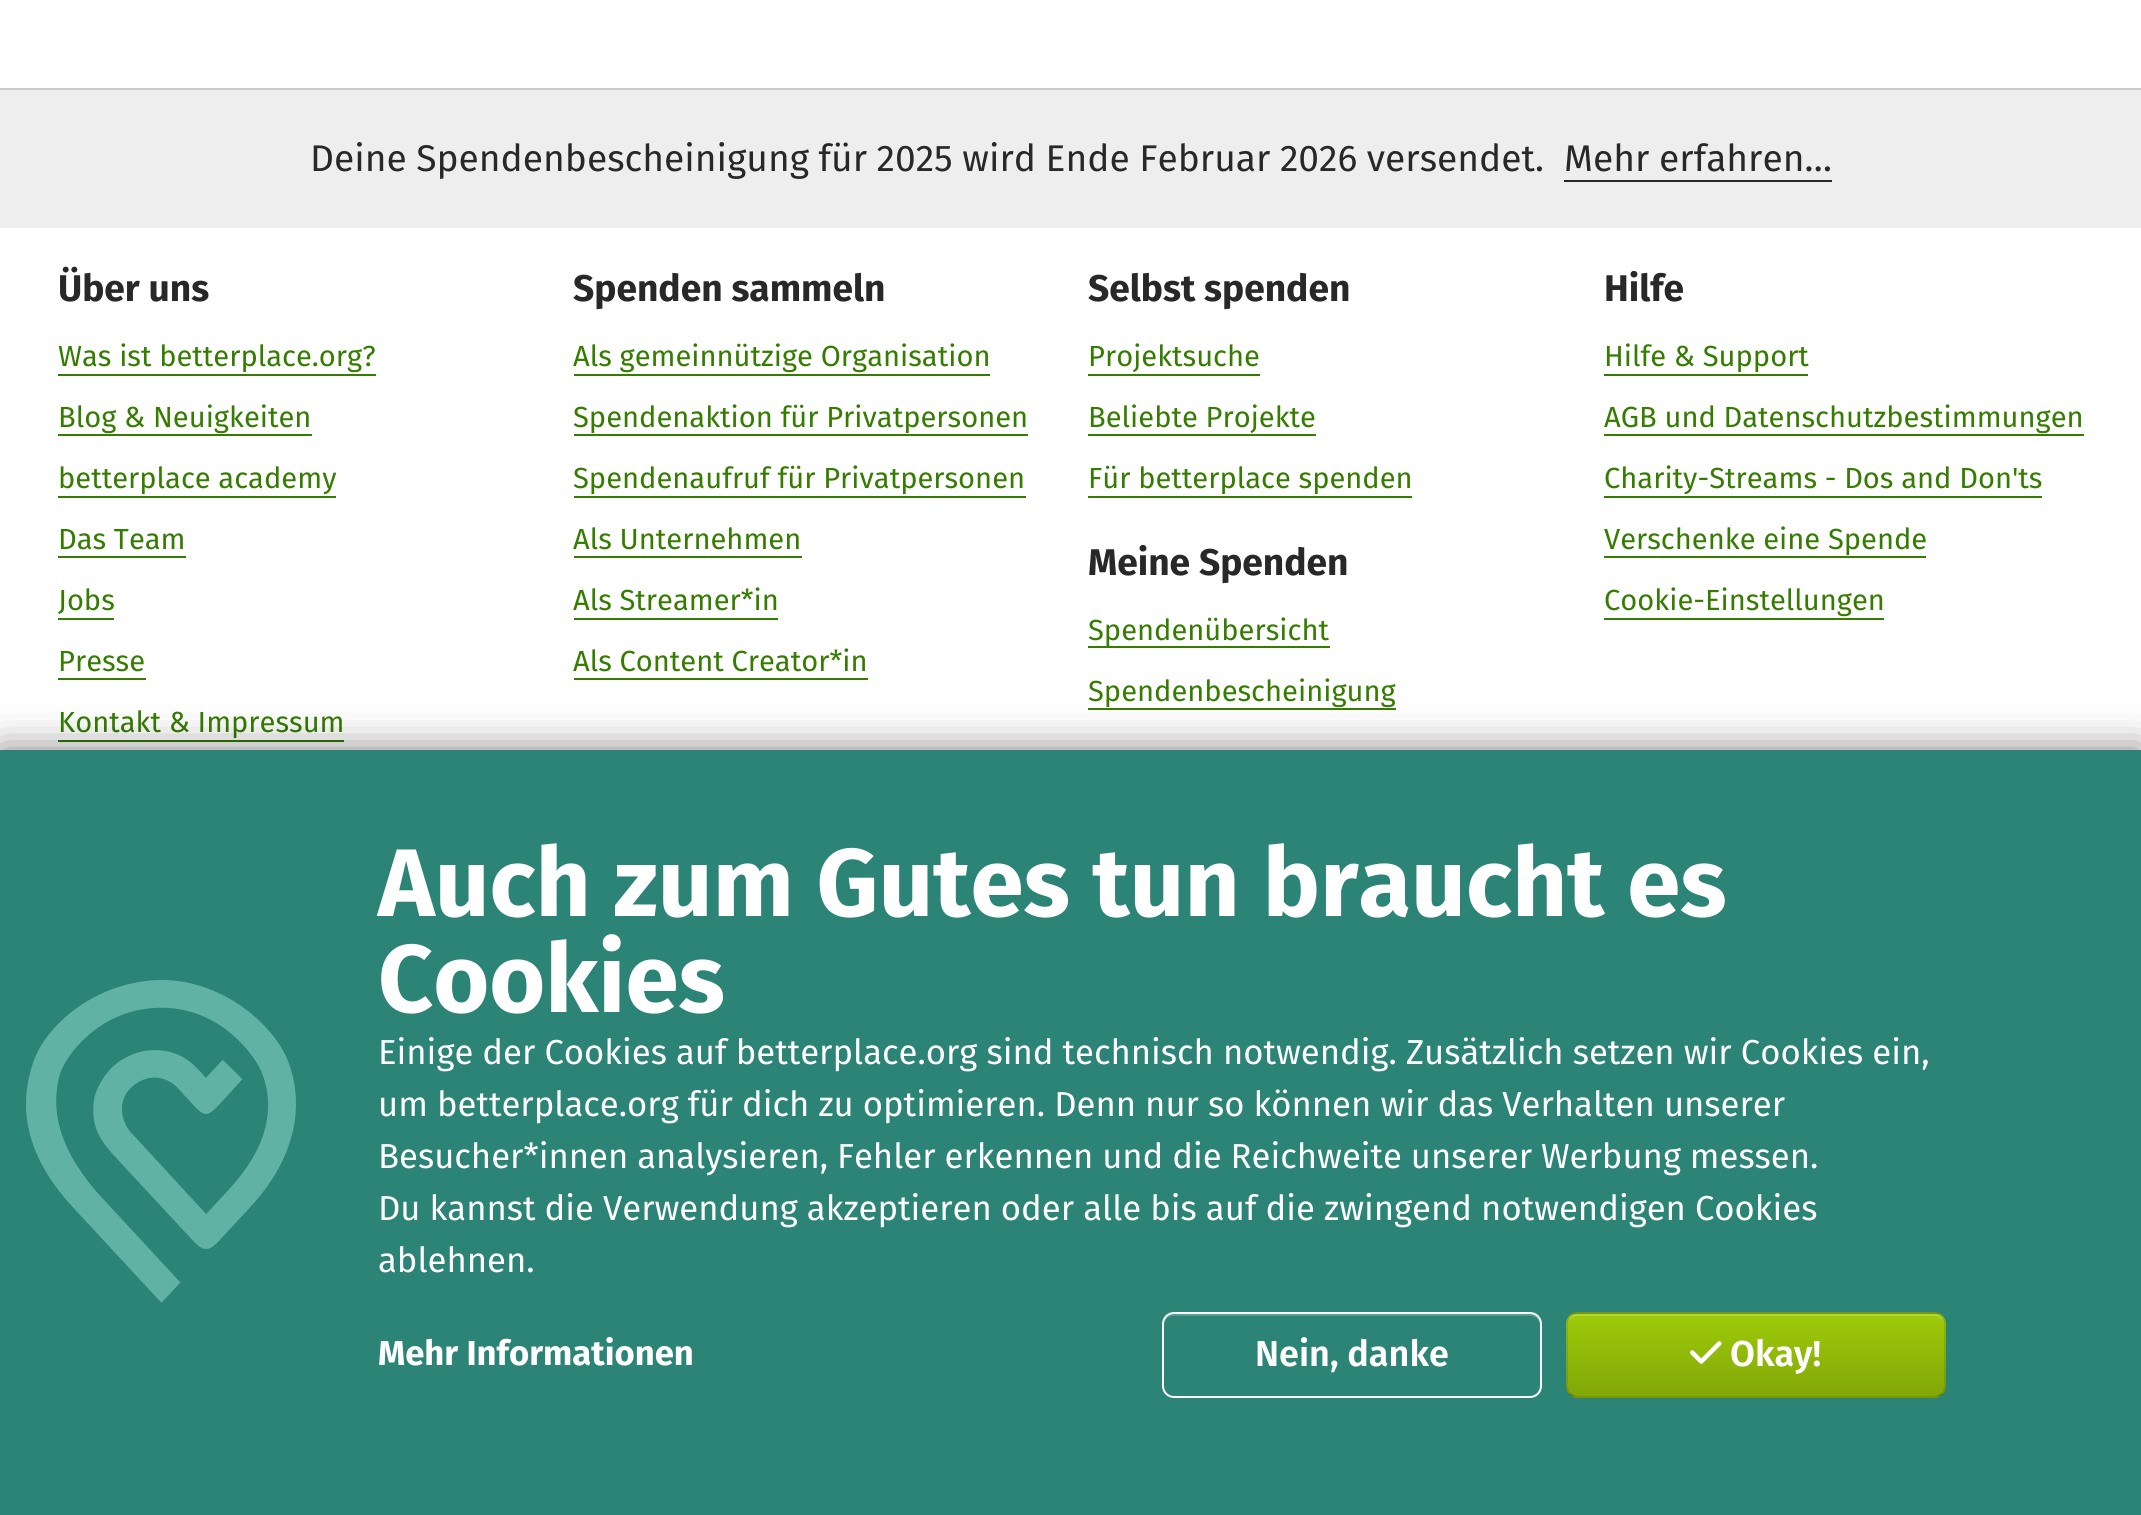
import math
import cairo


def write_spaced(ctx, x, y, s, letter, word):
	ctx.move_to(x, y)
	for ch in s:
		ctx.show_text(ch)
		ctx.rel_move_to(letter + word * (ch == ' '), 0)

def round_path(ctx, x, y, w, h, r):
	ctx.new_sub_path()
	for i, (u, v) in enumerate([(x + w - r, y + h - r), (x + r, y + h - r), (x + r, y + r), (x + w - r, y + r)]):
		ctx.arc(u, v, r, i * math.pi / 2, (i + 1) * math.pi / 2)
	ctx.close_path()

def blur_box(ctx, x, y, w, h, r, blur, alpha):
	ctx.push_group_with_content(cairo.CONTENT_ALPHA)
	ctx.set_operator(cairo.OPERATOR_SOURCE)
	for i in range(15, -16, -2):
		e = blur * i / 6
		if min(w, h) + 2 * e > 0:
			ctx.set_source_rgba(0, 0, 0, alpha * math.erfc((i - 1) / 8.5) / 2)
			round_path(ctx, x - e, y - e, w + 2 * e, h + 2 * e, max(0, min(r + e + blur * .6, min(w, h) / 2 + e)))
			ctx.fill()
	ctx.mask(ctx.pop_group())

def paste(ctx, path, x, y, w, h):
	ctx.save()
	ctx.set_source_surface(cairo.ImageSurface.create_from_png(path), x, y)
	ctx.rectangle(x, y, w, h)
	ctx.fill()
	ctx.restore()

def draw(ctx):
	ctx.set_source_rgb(1, 1, 1)
	ctx.paint()
	ctx.set_source_rgb(0.8, 0.8, 0.8)
	ctx.rectangle(0, 88, 2141, 2)
	ctx.fill()
	ctx.set_source_rgb(0.933, 0.933, 0.933)
	ctx.rectangle(0, 90, 2141, 138)
	ctx.fill()
	ctx.select_font_face('Fira Sans')
	ctx.set_font_size(37.15)
	ctx.set_source_rgb(0.157, 0.157, 0.157)
	write_spaced(ctx, 310, 171, 'Deine Spendenbescheinigung für 2025 wird Ende Februar 2026 versendet.', 0, -0.25)
	ctx.move_to(1564, 171)
	ctx.show_text('Mehr erfahren…')
	ctx.rectangle(1564, 180, 268, 2)
	ctx.fill()
	ctx.select_font_face('Fira Sans', cairo.FONT_SLANT_NORMAL, cairo.FONT_WEIGHT_BOLD)
	ctx.move_to(58, 301)
	ctx.show_text('Über uns')
	ctx.select_font_face('Fira Sans')
	ctx.set_font_size(29.1)
	ctx.set_source_rgb(0.208, 0.486, 0)
	ctx.move_to(58, 366)
	ctx.show_text('Was ist betterplace.org?')
	ctx.rectangle(58, 374, 318, 2)
	ctx.fill()
	ctx.move_to(58, 427)
	ctx.show_text('Blog & Neuigkeiten')
	ctx.rectangle(58, 434, 254, 2)
	ctx.fill()
	ctx.move_to(58, 488)
	ctx.show_text('betterplace academy')
	ctx.rectangle(58, 496, 278, 2)
	ctx.fill()
	ctx.move_to(58, 549)
	ctx.show_text('Das Team')
	ctx.rectangle(58, 556, 128, 2)
	ctx.fill()
	ctx.move_to(58, 610)
	ctx.show_text('Jobs')
	ctx.rectangle(58, 618, 56, 2)
	ctx.fill()
	ctx.move_to(58, 671)
	ctx.show_text('Presse')
	ctx.rectangle(58, 678, 88, 2)
	ctx.fill()
	ctx.move_to(58, 732)
	ctx.show_text('Kontakt & Impressum')
	ctx.rectangle(58, 740, 286, 2)
	ctx.fill()
	ctx.select_font_face('Fira Sans', cairo.FONT_SLANT_NORMAL, cairo.FONT_WEIGHT_BOLD)
	ctx.set_font_size(37.15)
	ctx.set_source_rgb(0.157, 0.157, 0.157)
	ctx.move_to(573, 301)
	ctx.show_text('Spenden sammeln')
	ctx.select_font_face('Fira Sans')
	ctx.set_font_size(29.1)
	ctx.set_source_rgb(0.208, 0.486, 0)
	ctx.move_to(573, 366)
	ctx.show_text('Als gemeinnützige Organisation')
	ctx.rectangle(574, 374, 416, 2)
	ctx.fill()
	ctx.move_to(573, 427)
	ctx.show_text('Spendenaktion für Privatpersonen')
	ctx.rectangle(574, 434, 454, 2)
	ctx.fill()
	ctx.move_to(573, 488)
	ctx.show_text('Spendenaufruf für Privatpersonen')
	ctx.rectangle(574, 496, 452, 2)
	ctx.fill()
	ctx.move_to(573, 549)
	ctx.show_text('Als Unternehmen')
	ctx.rectangle(574, 556, 228, 2)
	ctx.fill()
	ctx.move_to(573, 610)
	ctx.show_text('Als Streamer*in')
	ctx.rectangle(574, 618, 204, 2)
	ctx.fill()
	ctx.move_to(573, 671)
	ctx.show_text('Als Content Creator*in')
	ctx.rectangle(574, 678, 294, 2)
	ctx.fill()
	ctx.select_font_face('Fira Sans', cairo.FONT_SLANT_NORMAL, cairo.FONT_WEIGHT_BOLD)
	ctx.set_font_size(37.15)
	ctx.set_source_rgb(0.157, 0.157, 0.157)
	ctx.move_to(1088, 301)
	ctx.show_text('Selbst spenden')
	ctx.select_font_face('Fira Sans')
	ctx.set_font_size(29.1)
	ctx.set_source_rgb(0.208, 0.486, 0)
	ctx.move_to(1088, 366)
	ctx.show_text('Projektsuche')
	ctx.rectangle(1088, 374, 172, 2)
	ctx.fill()
	ctx.move_to(1088, 427)
	ctx.show_text('Beliebte Projekte')
	ctx.rectangle(1088, 434, 228, 2)
	ctx.fill()
	ctx.move_to(1088, 488)
	ctx.show_text('Für betterplace spenden')
	ctx.rectangle(1088, 496, 324, 2)
	ctx.fill()
	ctx.select_font_face('Fira Sans', cairo.FONT_SLANT_NORMAL, cairo.FONT_WEIGHT_BOLD)
	ctx.set_font_size(37.15)
	ctx.set_source_rgb(0.157, 0.157, 0.157)
	ctx.move_to(1088, 575)
	ctx.show_text('Meine Spenden')
	ctx.set_source_rgb(0.208, 0.486, 0)
	ctx.rectangle(1088, 646, 242, 2)
	ctx.fill()
	ctx.select_font_face('Fira Sans')
	ctx.set_font_size(29.1)
	ctx.move_to(1088, 640)
	ctx.show_text('Spendenübersicht')
	ctx.move_to(1088, 701)
	ctx.show_text('Spendenbescheinigung')
	ctx.rectangle(1088, 708, 308, 2)
	ctx.fill()
	ctx.select_font_face('Fira Sans', cairo.FONT_SLANT_NORMAL, cairo.FONT_WEIGHT_BOLD)
	ctx.set_font_size(37.15)
	ctx.set_source_rgb(0.157, 0.157, 0.157)
	ctx.move_to(1604, 301)
	ctx.show_text('Hilfe')
	ctx.select_font_face('Fira Sans')
	ctx.set_font_size(29.1)
	ctx.set_source_rgb(0.208, 0.486, 0)
	ctx.move_to(1604, 366)
	ctx.show_text('Hilfe & Support')
	ctx.rectangle(1604, 374, 204, 2)
	ctx.fill()
	ctx.move_to(1604, 427)
	ctx.show_text('AGB und Datenschutzbestimmungen')
	ctx.rectangle(1604, 434, 480, 2)
	ctx.fill()
	ctx.move_to(1604, 488)
	ctx.show_text('Charity-Streams - Dos and Don\'ts')
	ctx.rectangle(1604, 496, 438, 2)
	ctx.fill()
	ctx.move_to(1604, 549)
	ctx.show_text('Verschenke eine Spende')
	ctx.rectangle(1604, 556, 322, 2)
	ctx.fill()
	ctx.move_to(1604, 610)
	ctx.show_text('Cookie-Einstellungen')
	ctx.rectangle(1604, 618, 280, 2)
	ctx.fill()
	ctx.set_source_rgb(0, 0, 0)
	blur_box(ctx, 0, 750, 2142, 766, 0, 20, 0.5)
	ctx.set_source_rgb(0.169, 0.518, 0.459)
	ctx.rectangle(0, 750, 2141, 765)
	ctx.fill()
	paste(ctx, 'media/1.png', 26, 980, 270, 323)
	ctx.select_font_face('Fira Sans', cairo.FONT_SLANT_NORMAL, cairo.FONT_WEIGHT_BOLD)
	ctx.set_font_size(96)
	ctx.set_source_rgb(1, 1, 1)
	ctx.move_to(378, 916)
	ctx.show_text('Auch zum Gutes tun braucht es')
	ctx.move_to(378, 1012)
	ctx.show_text('Cookies')
	ctx.select_font_face('Fira Sans')
	ctx.set_font_size(34.65)
	write_spaced(ctx, 378, 1064, 'Einige der Cookies auf betterplace.org sind technisch notwendig. Zusätzlich setzen wir Cookies ein,', 0, -0.1)
	write_spaced(ctx, 378, 1116, 'um betterplace.org für dich zu optimieren. Denn nur so können wir das Verhalten unserer', 0, -0.1)
	write_spaced(ctx, 378, 1168, 'Besucher*innen analysieren, Fehler erkennen und die Reichweite unserer Werbung messen.', 0, -0.25)
	write_spaced(ctx, 378, 1220, 'Du kannst die Verwendung akzeptieren oder alle bis auf die zwingend notwendigen Cookies', 0, -0.1)
	ctx.move_to(378, 1272)
	ctx.show_text('ablehnen.')
	ctx.select_font_face('Fira Sans', cairo.FONT_SLANT_NORMAL, cairo.FONT_WEIGHT_BOLD)
	ctx.move_to(378, 1365)
	ctx.show_text('Mehr Informationen')
	ctx.set_source_rgb(0.333, 0.616, 0.569)
	ctx.new_path()
	ctx.move_to(1174, 1316)
	ctx.line_to(1530, 1316)
	ctx.curve_to(1536, 1316, 1540, 1320, 1540, 1326)
	ctx.curve_to(1540, 1321, 1538, 1315, 1532, 1314)
	ctx.line_to(1172, 1314)
	ctx.curve_to(1166, 1315, 1164, 1321, 1164, 1326)
	ctx.curve_to(1164, 1320, 1168, 1316, 1174, 1316)
	ctx.close_path()
	ctx.fill()
	round_path(ctx, 1163, 1313, 378, 84, 11)
	ctx.set_source_rgb(1, 1, 1)
	ctx.stroke()
	ctx.select_font_face('Fira Sans SemiBold')
	ctx.set_font_size(36)
	ctx.move_to(1255, 1366)
	ctx.show_text('Nein, danke')
	ctx.save()
	round_path(ctx, 1566, 1312, 380, 86, 12)
	ctx.clip()
	gradient = cairo.LinearGradient(1756, 1232, 1756, 1314)
	gradient.add_color_stop_rgba(0, 0.62, 0.796, 0.039, 1)
	gradient.add_color_stop_rgba(1, 0.51, 0.655, 0.031, 1)
	ctx.set_source(gradient)
	ctx.rectangle(1566, 1312, 380, 2)
	ctx.fill()
	gradient = cairo.LinearGradient(1756, 1314, 1756, 1396)
	gradient.add_color_stop_rgba(0, 0.62, 0.796, 0.039, 1)
	gradient.add_color_stop_rgba(1, 0.51, 0.655, 0.031, 1)
	ctx.set_source(gradient)
	ctx.rectangle(1566, 1314, 380, 82)
	ctx.fill()
	gradient = cairo.LinearGradient(1756, 1396, 1756, 1478)
	gradient.add_color_stop_rgba(0, 0.62, 0.796, 0.039, 1)
	gradient.add_color_stop_rgba(1, 0.51, 0.655, 0.031, 1)
	ctx.set_source(gradient)
	ctx.rectangle(1566, 1396, 380, 2)
	ctx.fill()
	ctx.restore()
	ctx.set_source_rgb(0.694, 0.835, 0.231)
	ctx.new_path()
	ctx.move_to(1578, 1316)
	ctx.line_to(1934, 1316)
	ctx.curve_to(1940, 1316, 1944, 1320, 1944, 1326)
	ctx.curve_to(1944, 1321, 1942, 1315, 1936, 1314)
	ctx.line_to(1576, 1314)
	ctx.curve_to(1570, 1315, 1568, 1321, 1568, 1326)
	ctx.curve_to(1568, 1320, 1572, 1316, 1578, 1316)
	ctx.close_path()
	ctx.fill()
	ctx.new_path()
	ctx.move_to(1942, 1394)
	ctx.curve_to(1939.5, 1396, 1937, 1397, 1934, 1397)
	ctx.line_to(1578, 1397)
	ctx.curve_to(1575, 1397, 1572.5, 1396, 1570, 1394)
	ctx.set_source_rgba(0, 0, 0, 0.25)
	ctx.stroke()
	ctx.new_path()
	ctx.move_to(1570, 1394)
	ctx.curve_to(1568, 1391.5, 1567, 1389, 1567, 1386)
	ctx.line_to(1567, 1324)
	ctx.curve_to(1567, 1321, 1568, 1318.5, 1570, 1316)
	ctx.curve_to(1572.5, 1314, 1575, 1313, 1578, 1313)
	ctx.line_to(1934, 1313)
	ctx.curve_to(1937, 1313, 1939.5, 1314, 1942, 1316)
	ctx.curve_to(1944, 1318.5, 1945, 1321, 1945, 1324)
	ctx.line_to(1945, 1386)
	ctx.curve_to(1945, 1389, 1944, 1391.5, 1942, 1394)
	ctx.set_source_rgba(0, 0, 0, 0.1)
	ctx.stroke()
	paste(ctx, 'media/2.png', 1690, 1341, 32, 23)
	ctx.set_source_rgb(1, 1, 1)
	ctx.move_to(1730, 1366)
	ctx.show_text('Okay!')


surface = cairo.ImageSurface(cairo.FORMAT_RGB24, 2141, 1515)
ctx = cairo.Context(surface)
options = cairo.FontOptions()
options.set_hint_metrics(cairo.HINT_METRICS_OFF)
options.set_hint_style(cairo.HINT_STYLE_NONE)
ctx.set_font_options(options)
ctx.set_miter_limit(4)
draw(ctx)
surface.write_to_png('image.png')
